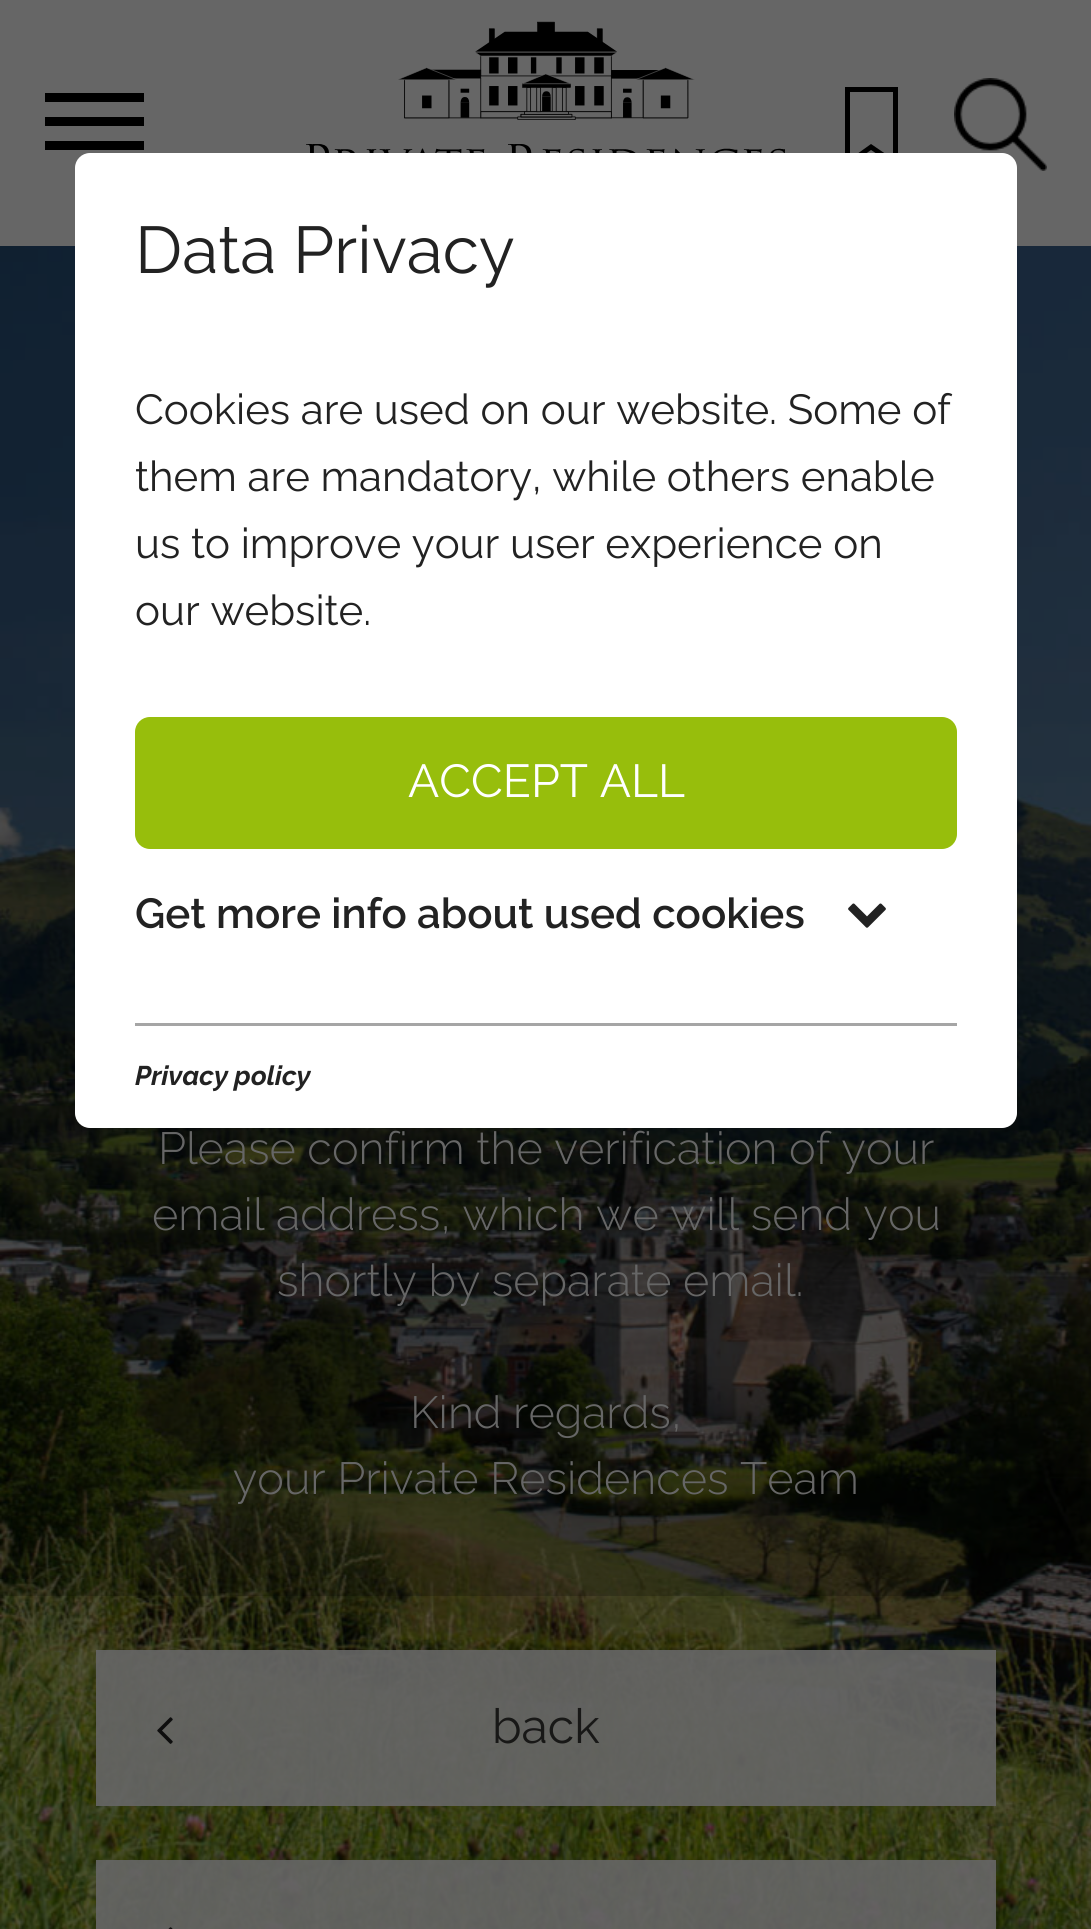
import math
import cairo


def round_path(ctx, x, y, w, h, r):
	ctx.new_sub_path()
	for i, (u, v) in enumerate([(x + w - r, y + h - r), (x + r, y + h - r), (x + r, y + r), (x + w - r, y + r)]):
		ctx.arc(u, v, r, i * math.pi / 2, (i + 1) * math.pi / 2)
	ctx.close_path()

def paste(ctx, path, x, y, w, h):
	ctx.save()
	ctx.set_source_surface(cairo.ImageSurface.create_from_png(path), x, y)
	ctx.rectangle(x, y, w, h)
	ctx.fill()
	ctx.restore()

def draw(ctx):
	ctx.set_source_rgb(1, 1, 1)
	ctx.paint()
	ctx.set_source_rgb(0.4, 0.4, 0.4)
	ctx.rectangle(0, 0, 1091, 246)
	ctx.fill()
	ctx.set_source_rgb(0, 0, 0)
	ctx.new_path()
	ctx.move_to(871, 150)
	ctx.line_to(898, 168)
	ctx.line_to(898, 87)
	ctx.line_to(845, 87)
	ctx.line_to(845, 168)
	ctx.close_path()
	ctx.move_to(850, 92)
	ctx.line_to(893, 92)
	ctx.line_to(893, 159)
	ctx.line_to(871, 144)
	ctx.line_to(850, 159)
	ctx.close_path()
	ctx.fill()
	paste(ctx, 'media/3.png', 954, 78, 93, 93)
	paste(ctx, 'media/4.png', 0, 246, 1091, 1683)
	ctx.set_source_rgba(0, 0, 0, 0.2)
	ctx.rectangle(0, 246, 1091, 1350)
	ctx.fill()
	ctx.set_source_rgb(1, 1, 1)
	round_path(ctx, 75, 153, 942, 975, 15)
	ctx.fill()
	ctx.select_font_face('Raleway')
	ctx.set_font_size(66)
	ctx.set_source_rgb(0.133, 0.133, 0.133)
	ctx.move_to(135, 273)
	ctx.show_text('Data Privacy')
	ctx.set_font_size(42)
	for x, y, s in [
		(135, 424, 'Cookies are used on our website. Some of'),
		(135, 491, 'them are mandatory, while others enable'),
		(135, 558, 'us to improve your user experience on'),
		(135, 625, 'our website.'),
	]:
		ctx.move_to(x, y)
		ctx.show_text(s)
	ctx.set_source_rgb(0.592, 0.745, 0.047)
	round_path(ctx, 135, 717, 822, 132, 15)
	ctx.fill()
	ctx.set_font_size(46.25)
	ctx.set_source_rgb(1, 1, 1)
	ctx.move_to(408, 797)
	ctx.show_text('ACCEPT ALL')
	ctx.select_font_face('Raleway SemiBold')
	ctx.set_font_size(42)
	ctx.set_source_rgb(0.133, 0.133, 0.133)
	ctx.move_to(135, 928)
	ctx.show_text('Get more info about used cookies')
	paste(ctx, 'media/1.png', 848, 903, 38, 25)
	ctx.set_source_rgb(0.647, 0.647, 0.647)
	ctx.rectangle(135, 1023, 822, 3)
	ctx.fill()
	ctx.select_font_face('Raleway Thin', cairo.FONT_SLANT_ITALIC)
	ctx.set_font_size(27)
	ctx.set_source_rgb(0.133, 0.133, 0.133)
	ctx.move_to(135, 1085)
	ctx.show_text('Privacy policy')
	ctx.set_source_rgb(0, 0, 0)
	ctx.rectangle(45, 93, 99, 9)
	ctx.rectangle(45, 117, 99, 9)
	ctx.rectangle(45, 141, 99, 9)
	ctx.fill()
	paste(ctx, 'media/2.png', 306, 21, 479, 132)
	ctx.select_font_face('Raleway Light')
	ctx.set_font_size(45)
	ctx.set_source_rgb(0.4, 0.4, 0.4)
	for x, y, s in [
		(158, 1164, 'Please confirm the verification of your'),
		(152, 1230, 'email address, which we will send you'),
		(277, 1296, 'shortly by separate email.'),
		(410, 1428, 'Kind regards,'),
		(233, 1494, 'your Private Residences Team'),
	]:
		ctx.move_to(x, y)
		ctx.show_text(s)
	ctx.set_source_rgba(0.4, 0.4, 0.4, 0.9)
	ctx.rectangle(96, 1650, 900, 156)
	ctx.fill()
	paste(ctx, 'media/5.png', 157, 1717, 16, 27)
	ctx.select_font_face('Raleway')
	ctx.set_font_size(48)
	ctx.set_source_rgb(0.094, 0.094, 0.09)
	ctx.move_to(492, 1743)
	ctx.show_text('back')
	ctx.set_source_rgba(0.4, 0.4, 0.4, 0.9)
	ctx.rectangle(96, 1860, 900, 69)
	ctx.fill()
	paste(ctx, 'media/6.png', 168, 1927, 5, 2)


surface = cairo.ImageSurface(cairo.FORMAT_RGB24, 1091, 1929)
ctx = cairo.Context(surface)
options = cairo.FontOptions()
options.set_hint_metrics(cairo.HINT_METRICS_OFF)
options.set_hint_style(cairo.HINT_STYLE_NONE)
ctx.set_font_options(options)
ctx.set_miter_limit(4)
draw(ctx)
surface.write_to_png('image.png')
